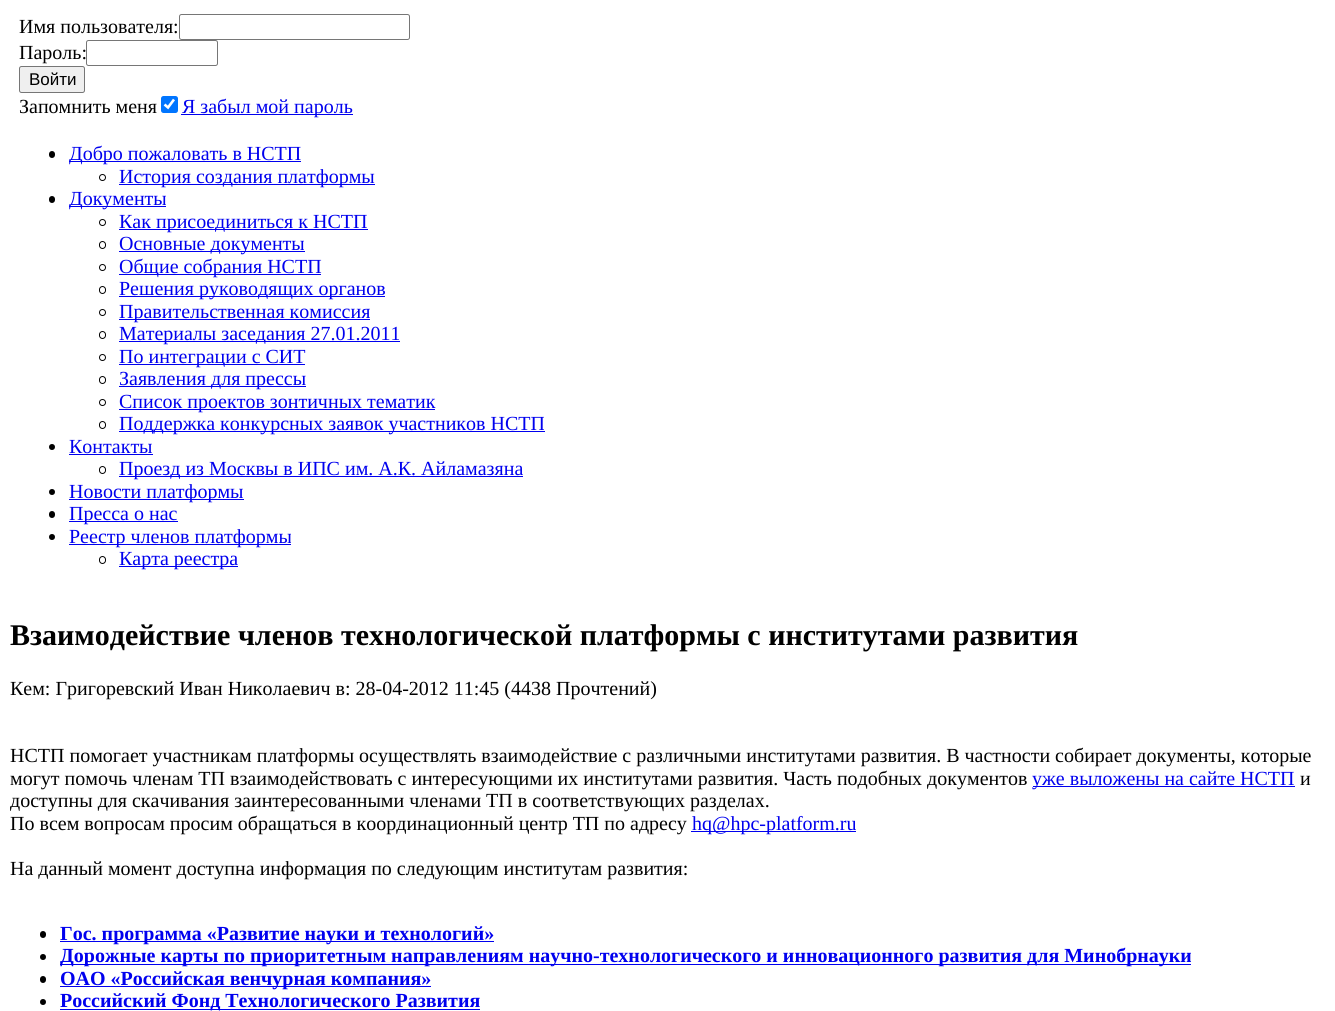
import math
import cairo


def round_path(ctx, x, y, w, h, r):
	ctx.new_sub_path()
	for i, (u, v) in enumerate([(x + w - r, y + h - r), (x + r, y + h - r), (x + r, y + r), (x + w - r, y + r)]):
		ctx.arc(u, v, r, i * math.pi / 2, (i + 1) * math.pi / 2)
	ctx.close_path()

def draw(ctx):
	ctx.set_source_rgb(1, 1, 1)
	ctx.paint()
	ctx.select_font_face('Liberation Serif')
	ctx.set_font_size(20)
	ctx.set_source_rgb(0, 0, 0)
	ctx.move_to(19, 33)
	ctx.show_text('Имя пользователя:')
	round_path(ctx, 179.5, 14.5, 230, 25, 2)
	ctx.set_source_rgb(0.463, 0.463, 0.463)
	ctx.set_line_width(1)
	ctx.stroke()
	ctx.set_source_rgb(0, 0, 0)
	ctx.move_to(19, 59)
	ctx.show_text('Пароль:')
	round_path(ctx, 86.5, 40.5, 131, 25, 2)
	ctx.set_source_rgb(0.463, 0.463, 0.463)
	ctx.stroke()
	ctx.set_source_rgb(0.937, 0.937, 0.937)
	round_path(ctx, 19.5, 66.5, 65, 26, 2)
	ctx.fill_preserve()
	ctx.set_source_rgb(0.463, 0.463, 0.463)
	ctx.stroke()
	ctx.select_font_face('Liberation Sans')
	ctx.set_font_size(17)
	ctx.set_source_rgb(0, 0, 0)
	ctx.move_to(29, 85)
	ctx.show_text('Войти')
	ctx.select_font_face('Liberation Serif')
	ctx.set_font_size(20)
	ctx.move_to(19, 113)
	ctx.show_text('Запомнить меня')
	ctx.set_source_rgb(0, 0.459, 1)
	round_path(ctx, 161, 96, 17, 17, 2.5)
	ctx.fill()
	ctx.new_path()
	ctx.move_to(164.5, 104.5)
	ctx.line_to(168, 107.5)
	ctx.line_to(174, 99.5)
	ctx.set_source_rgb(1, 1, 1)
	ctx.set_line_width(2.6)
	ctx.stroke()
	ctx.set_source_rgb(0, 0, 0.933)
	ctx.rectangle(181, 114, 172, 1)
	ctx.fill()
	ctx.move_to(182, 113)
	ctx.show_text('Я забыл мой пароль')
	ctx.set_source_rgb(0, 0, 0)
	round_path(ctx, 49, 151, 6, 7, 3)
	ctx.fill()
	ctx.set_source_rgb(0, 0, 0.933)
	ctx.rectangle(69, 161, 232, 1)
	ctx.fill()
	ctx.move_to(69, 160)
	ctx.show_text('Добро пожаловать в НСТП')
	ctx.new_path()
	ctx.arc(102.5, 177.5, 3, 0, 2 * math.pi)
	ctx.set_source_rgb(0, 0, 0)
	ctx.set_line_width(1)
	ctx.stroke()
	ctx.set_source_rgb(0, 0, 0.933)
	ctx.rectangle(119, 184, 256, 1)
	ctx.fill()
	ctx.move_to(119, 183)
	ctx.show_text('История создания платформы')
	ctx.set_source_rgb(0, 0, 0)
	round_path(ctx, 49, 196, 6, 7, 3)
	ctx.fill()
	ctx.set_source_rgb(0, 0, 0.933)
	ctx.rectangle(69, 206, 97, 1)
	ctx.fill()
	ctx.move_to(69, 205)
	ctx.show_text('Документы')
	ctx.new_path()
	ctx.arc(102.5, 222.5, 3, 0, 2 * math.pi)
	ctx.set_source_rgb(0, 0, 0)
	ctx.stroke()
	ctx.set_source_rgb(0, 0, 0.933)
	ctx.rectangle(119, 229, 249, 1)
	ctx.fill()
	ctx.move_to(119, 228)
	ctx.show_text('Как присоединиться к НСТП')
	round_path(ctx, 99.5, 241.5, 6, 7, 3)
	ctx.set_source_rgb(0, 0, 0)
	ctx.stroke()
	ctx.set_source_rgb(0, 0, 0.933)
	ctx.rectangle(119, 251, 186, 1)
	ctx.fill()
	ctx.move_to(119, 250)
	ctx.show_text('Основные документы')
	ctx.new_path()
	ctx.arc(102.5, 267.5, 3, 0, 2 * math.pi)
	ctx.set_source_rgb(0, 0, 0)
	ctx.stroke()
	ctx.set_source_rgb(0, 0, 0.933)
	ctx.rectangle(119, 274, 202, 1)
	ctx.fill()
	ctx.move_to(119, 273)
	ctx.show_text('Общие собрания НСТП')
	round_path(ctx, 99.5, 286.5, 6, 7, 3)
	ctx.set_source_rgb(0, 0, 0)
	ctx.stroke()
	ctx.set_source_rgb(0, 0, 0.933)
	ctx.rectangle(119, 296, 266, 1)
	ctx.fill()
	ctx.move_to(119, 295)
	ctx.show_text('Решения руководящих органов')
	ctx.new_path()
	ctx.arc(102.5, 312.5, 3, 0, 2 * math.pi)
	ctx.set_source_rgb(0, 0, 0)
	ctx.stroke()
	ctx.set_source_rgb(0, 0, 0.933)
	ctx.rectangle(119, 319, 251, 1)
	ctx.fill()
	ctx.move_to(119, 318)
	ctx.show_text('Правительственная комиссия')
	round_path(ctx, 99.5, 331.5, 6, 7, 3)
	ctx.set_source_rgb(0, 0, 0)
	ctx.stroke()
	ctx.set_source_rgb(0, 0, 0.933)
	ctx.rectangle(119, 341, 281, 1)
	ctx.fill()
	ctx.move_to(119, 340)
	ctx.show_text('Материалы заседания 27.01.2011')
	ctx.new_path()
	ctx.arc(102.5, 357.5, 3, 0, 2 * math.pi)
	ctx.set_source_rgb(0, 0, 0)
	ctx.stroke()
	ctx.set_source_rgb(0, 0, 0.933)
	ctx.rectangle(119, 364, 186, 1)
	ctx.fill()
	ctx.move_to(119, 363)
	ctx.show_text('По интеграции с СИТ')
	round_path(ctx, 99.5, 376.5, 6, 7, 3)
	ctx.set_source_rgb(0, 0, 0)
	ctx.stroke()
	ctx.set_source_rgb(0, 0, 0.933)
	ctx.rectangle(119, 386, 187, 1)
	ctx.fill()
	ctx.move_to(119, 385)
	ctx.show_text('Заявления для прессы')
	ctx.new_path()
	ctx.arc(102.5, 402.5, 3, 0, 2 * math.pi)
	ctx.set_source_rgb(0, 0, 0)
	ctx.stroke()
	ctx.set_source_rgb(0, 0, 0.933)
	ctx.rectangle(119, 409, 316, 1)
	ctx.fill()
	ctx.move_to(119, 408)
	ctx.show_text('Список проектов зонтичных тематик')
	round_path(ctx, 99.5, 421.5, 6, 7, 3)
	ctx.set_source_rgb(0, 0, 0)
	ctx.stroke()
	ctx.set_source_rgb(0, 0, 0.933)
	ctx.rectangle(119, 431, 426, 1)
	ctx.fill()
	ctx.move_to(119, 430)
	ctx.show_text('Поддержка конкурсных заявок участников НСТП')
	ctx.set_source_rgb(0, 0, 0)
	ctx.new_path()
	ctx.arc(52, 447, 3, 0, 2 * math.pi)
	ctx.fill()
	ctx.set_source_rgb(0, 0, 0.933)
	ctx.move_to(69, 453)
	ctx.show_text('Контакты')
	ctx.rectangle(69, 454, 84, 1)
	ctx.fill()
	round_path(ctx, 99.5, 466.5, 6, 7, 3)
	ctx.set_source_rgb(0, 0, 0)
	ctx.stroke()
	ctx.set_source_rgb(0, 0, 0.933)
	ctx.rectangle(119, 476, 404, 1)
	ctx.fill()
	ctx.move_to(119, 475)
	ctx.show_text('Проезд из Москвы в ИПС им. А.К. Айламазяна')
	ctx.set_source_rgb(0, 0, 0)
	ctx.new_path()
	ctx.arc(52, 492, 3, 0, 2 * math.pi)
	ctx.fill()
	ctx.set_source_rgb(0, 0, 0.933)
	ctx.rectangle(69, 499, 175, 1)
	ctx.fill()
	ctx.move_to(69, 498)
	ctx.show_text('Новости платформы')
	ctx.set_source_rgb(0, 0, 0)
	round_path(ctx, 49, 511, 6, 7, 3)
	ctx.fill()
	ctx.set_source_rgb(0, 0, 0.933)
	ctx.rectangle(69, 521, 109, 1)
	ctx.fill()
	ctx.move_to(69, 520)
	ctx.show_text('Пресса о нас')
	ctx.set_source_rgb(0, 0, 0)
	ctx.new_path()
	ctx.arc(52, 537, 3, 0, 2 * math.pi)
	ctx.fill()
	ctx.set_source_rgb(0, 0, 0.933)
	ctx.rectangle(69, 544, 222, 1)
	ctx.fill()
	ctx.move_to(69, 543)
	ctx.show_text('Реестр членов платформы')
	round_path(ctx, 99.5, 556.5, 6, 7, 3)
	ctx.set_source_rgb(0, 0, 0)
	ctx.stroke()
	ctx.set_source_rgb(0, 0, 0.933)
	ctx.rectangle(119, 566, 119, 1)
	ctx.fill()
	ctx.move_to(119, 565)
	ctx.show_text('Карта реестра')
	ctx.select_font_face('Liberation Serif', cairo.FONT_SLANT_NORMAL, cairo.FONT_WEIGHT_BOLD)
	ctx.set_font_size(30)
	ctx.set_source_rgb(0, 0, 0)
	ctx.move_to(10, 645)
	ctx.show_text('Взаимодействие членов технологической платформы с институтами развития')
	ctx.select_font_face('Liberation Serif')
	ctx.set_font_size(20)
	for x, y, s in [
		(10, 695, 'Кем: Григоревский Иван Николаевич в: 28-04-2012 11:45 (4438 Прочтений)'),
		(10, 762, 'НСТП помогает участникам платформы осуществлять взаимодействие с различными институтами развития. В частности собирает документы, которые'),
		(10, 785, 'могут помочь членам ТП взаимодействовать с интересующими их институтами развития. Часть подобных документов'),
	]:
		ctx.move_to(x, y)
		ctx.show_text(s)
	ctx.set_source_rgb(0, 0, 0.933)
	ctx.rectangle(1033, 786, 262, 1)
	ctx.fill()
	ctx.move_to(1032, 785)
	ctx.show_text('уже выложены на сайте НСТП')
	ctx.set_source_rgb(0, 0, 0)
	for x, y, s in [
		(1300, 785, 'и'),
		(10, 807, 'доступны для скачивания заинтересованными членами ТП в соответствующих разделах.'),
		(10, 830, 'По всем вопросам просим обращаться в координационный центр ТП по адресу'),
	]:
		ctx.move_to(x, y)
		ctx.show_text(s)
	ctx.set_source_rgb(0, 0, 0.933)
	ctx.rectangle(691, 831, 165, 1)
	ctx.fill()
	ctx.move_to(692, 830)
	ctx.show_text('hq@hpc-platform.ru')
	ctx.set_source_rgb(0, 0, 0)
	ctx.move_to(10, 875)
	ctx.show_text('На данный момент доступна информация по следующим институтам развития:')
	round_path(ctx, 40, 931, 6, 7, 3)
	ctx.fill()
	ctx.set_source_rgb(0, 0, 0.933)
	ctx.rectangle(60, 941, 434, 1)
	ctx.fill()
	ctx.select_font_face('Liberation Serif', cairo.FONT_SLANT_NORMAL, cairo.FONT_WEIGHT_BOLD)
	ctx.move_to(60, 940)
	ctx.show_text('Гос. программа «Развитие науки и технологий»')
	ctx.set_source_rgb(0, 0, 0)
	ctx.new_path()
	ctx.arc(43, 957, 3, 0, 2 * math.pi)
	ctx.fill()
	ctx.set_source_rgb(0, 0, 0.933)
	ctx.rectangle(60, 964, 1131, 1)
	ctx.fill()
	ctx.move_to(60, 962)
	ctx.show_text('Дорожные карты по приоритетным направлениям научно-технологического и инновационного развития для Минобрнауки')
	ctx.set_source_rgb(0, 0, 0)
	round_path(ctx, 40, 976, 6, 7, 3)
	ctx.fill()
	ctx.set_source_rgb(0, 0, 0.933)
	ctx.rectangle(60, 986, 371, 1)
	ctx.fill()
	ctx.move_to(60, 985)
	ctx.show_text('ОАО «Российская венчурная компания»')
	ctx.set_source_rgb(0, 0, 0)
	ctx.new_path()
	ctx.arc(43, 1002, 3, 0, 2 * math.pi)
	ctx.fill()
	ctx.set_source_rgb(0, 0, 0.933)
	ctx.rectangle(60, 1009, 420, 1)
	ctx.fill()
	ctx.move_to(60, 1007)
	ctx.show_text('Российский Фонд Технологического Развития')


surface = cairo.ImageSurface(cairo.FORMAT_RGB24, 1335, 1011)
ctx = cairo.Context(surface)
options = cairo.FontOptions()
options.set_hint_metrics(cairo.HINT_METRICS_OFF)
options.set_hint_style(cairo.HINT_STYLE_NONE)
ctx.set_font_options(options)
ctx.set_miter_limit(4)
draw(ctx)
surface.write_to_png('image.png')
